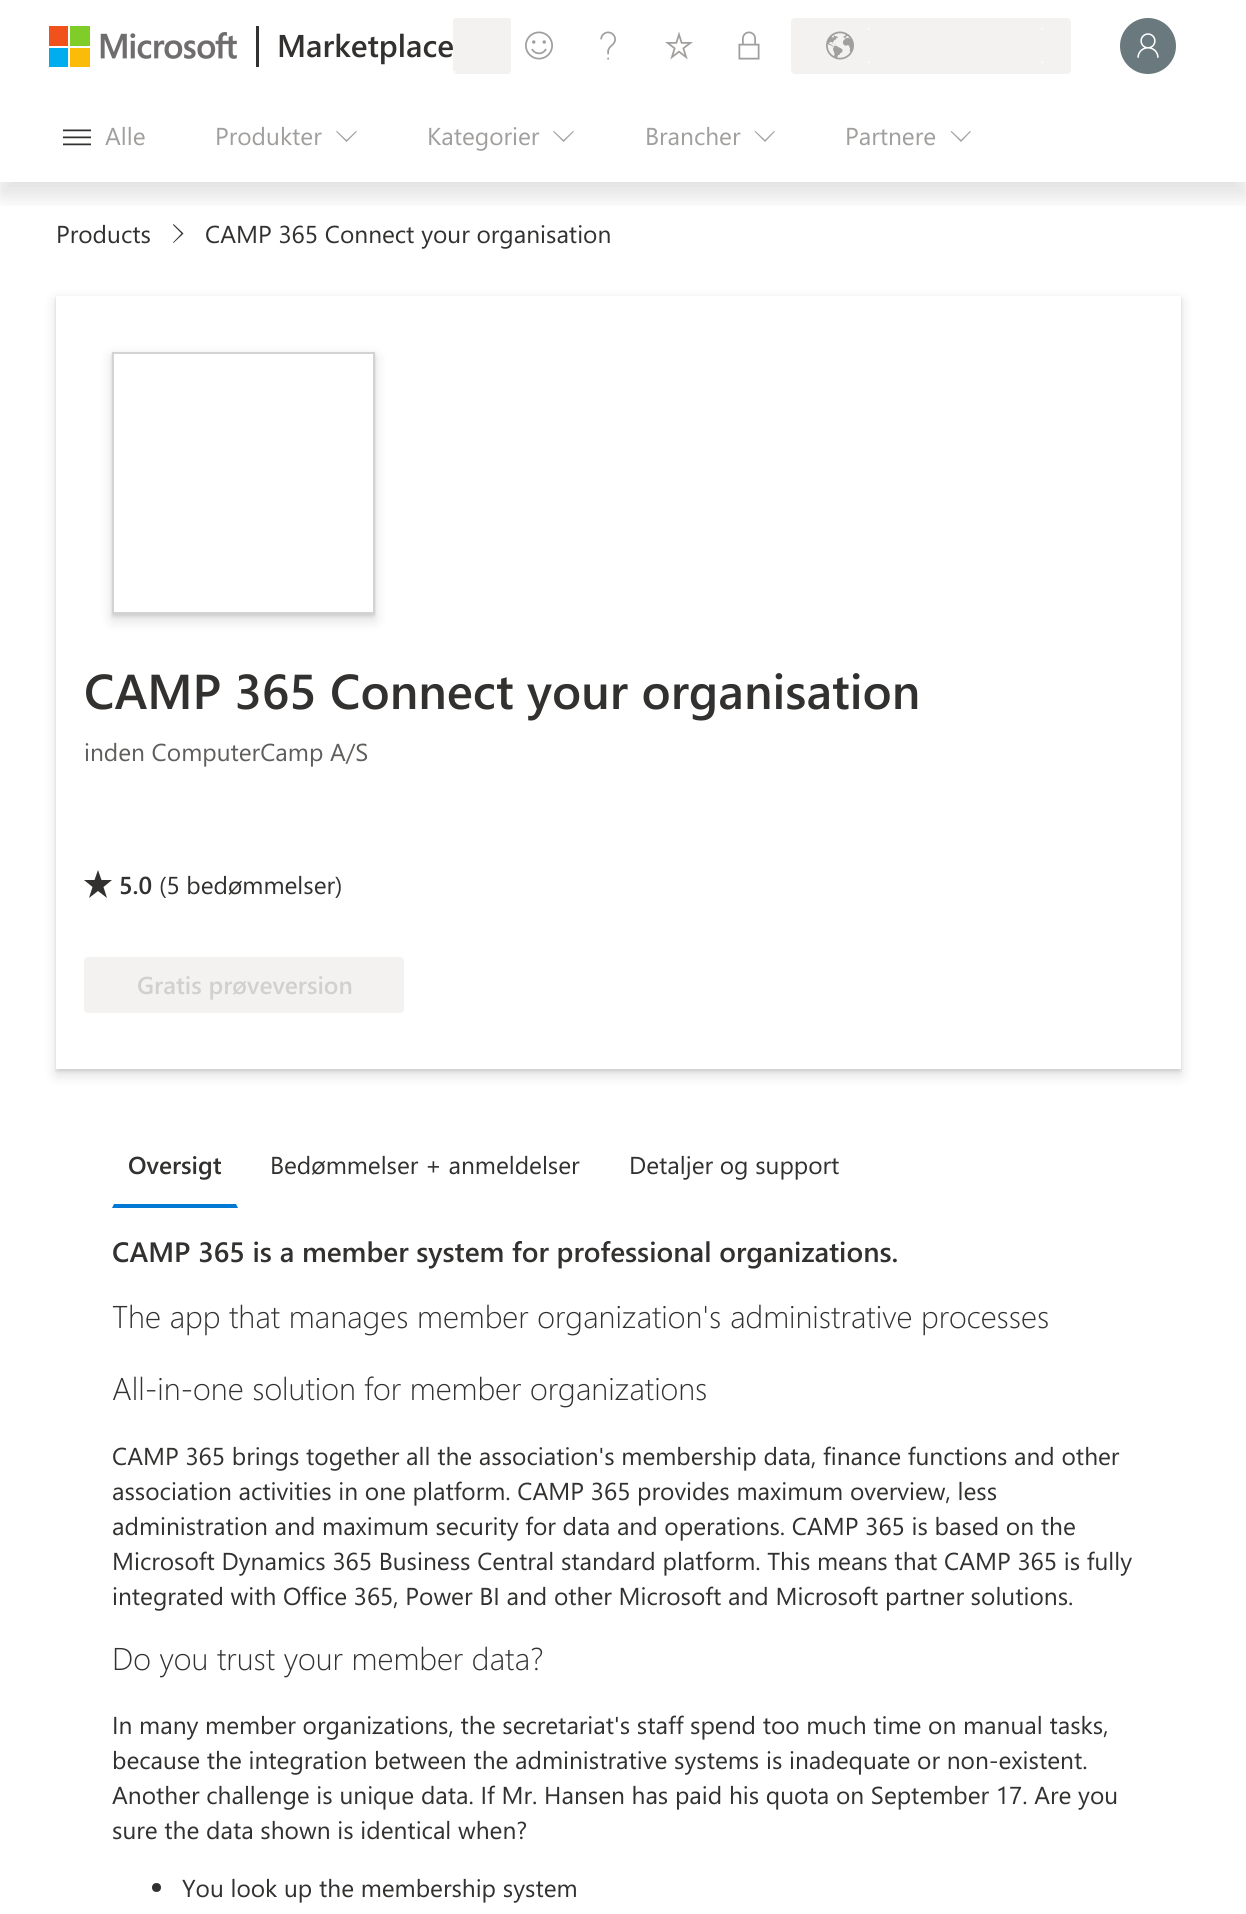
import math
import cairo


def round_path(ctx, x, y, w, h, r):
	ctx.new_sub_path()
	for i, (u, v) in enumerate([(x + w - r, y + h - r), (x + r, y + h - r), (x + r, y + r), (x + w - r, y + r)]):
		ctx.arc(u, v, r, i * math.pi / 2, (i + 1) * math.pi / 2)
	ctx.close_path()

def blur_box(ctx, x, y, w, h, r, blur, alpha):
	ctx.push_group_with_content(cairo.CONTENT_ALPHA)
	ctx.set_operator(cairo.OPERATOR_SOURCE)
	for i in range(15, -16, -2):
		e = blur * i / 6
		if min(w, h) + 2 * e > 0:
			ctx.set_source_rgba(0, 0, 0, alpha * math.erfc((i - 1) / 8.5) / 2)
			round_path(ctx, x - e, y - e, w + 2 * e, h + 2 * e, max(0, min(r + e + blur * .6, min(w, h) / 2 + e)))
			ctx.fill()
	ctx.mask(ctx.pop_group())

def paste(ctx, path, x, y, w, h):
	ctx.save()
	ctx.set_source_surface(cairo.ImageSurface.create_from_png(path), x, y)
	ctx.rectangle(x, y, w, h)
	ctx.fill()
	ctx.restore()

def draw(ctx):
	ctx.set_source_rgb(1, 1, 1)
	ctx.paint()
	ctx.set_source_rgb(0.196, 0.192, 0.188)
	ctx.new_path()
	ctx.move_to(173, 242.5)
	ctx.line_to(181.5, 233.5)
	ctx.line_to(173, 225)
	ctx.line_to(173.5, 224)
	ctx.line_to(183.5, 233.5)
	ctx.line_to(173.5, 243)
	ctx.close_path()
	ctx.fill()
	ctx.save()
	ctx.rectangle(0, 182, 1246, 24)
	ctx.clip()
	ctx.set_source_rgb(0, 0, 0)
	blur_box(ctx, 0, 14, 1246, 182, 0, 10.5, 0.12)
	ctx.restore()
	paste(ctx, 'media/1.png', 49, 26, 188, 41)
	ctx.rectangle(256, 26, 3, 41)
	ctx.fill()
	ctx.select_font_face('Segoe UI SemiBold')
	ctx.set_font_size(31.5)
	ctx.move_to(277, 57)
	ctx.show_text('Marketplace')
	ctx.set_source_rgb(0.953, 0.949, 0.945)
	ctx.rectangle(453, 18, 58, 56)
	ctx.fill()
	paste(ctx, 'media/2.png', 453, 18, 2, 2)
	paste(ctx, 'media/3.png', 510, 18, 1, 2)
	ctx.set_source_rgb(0.973, 0.969, 0.969)
	ctx.rectangle(453, 71, 3, 3)
	ctx.fill()
	paste(ctx, 'media/4.png', 509, 71, 2, 3)
	paste(ctx, 'media/5.png', 525, 31, 28, 29)
	paste(ctx, 'media/6.png', 600, 31, 16, 29)
	paste(ctx, 'media/7.png', 665, 32, 28, 28)
	paste(ctx, 'media/8.png', 738, 31, 22, 29)
	ctx.set_source_rgb(0.953, 0.949, 0.945)
	round_path(ctx, 791, 18, 280, 56, 4)
	ctx.fill()
	paste(ctx, 'media/9.png', 826, 31, 28, 29)
	paste(ctx, 'media/10.png', 868, 28, 2, 2)
	paste(ctx, 'media/11.png', 1041, 28, 2, 2)
	paste(ctx, 'media/12.png', 868, 61, 2, 2)
	paste(ctx, 'media/13.png', 1041, 61, 2, 2)
	ctx.set_source_rgb(0.412, 0.475, 0.494)
	ctx.arc(1148, 46, 28, 0, 2 * math.pi)
	ctx.fill()
	paste(ctx, 'media/14.png', 1137, 33, 22, 25)
	paste(ctx, 'media/15.png', 63, 129, 28, 17)
	ctx.select_font_face('Segoe UI')
	ctx.set_font_size(24.5)
	ctx.set_source_rgb(0.631, 0.624, 0.616)
	ctx.move_to(105, 145)
	ctx.show_text('Alle')
	ctx.move_to(215, 145)
	ctx.show_text('Produkter')
	ctx.new_path()
	ctx.move_to(356, 131)
	ctx.line_to(357, 131.5)
	ctx.line_to(346.5, 142)
	ctx.line_to(336, 131.5)
	ctx.line_to(337, 131)
	ctx.line_to(346.5, 140)
	ctx.close_path()
	ctx.fill()
	ctx.move_to(427, 145)
	ctx.show_text('Kategorier')
	ctx.new_path()
	ctx.move_to(573, 131)
	ctx.line_to(574, 131.5)
	ctx.line_to(563.5, 142)
	ctx.line_to(553, 131.5)
	ctx.line_to(554, 131)
	ctx.line_to(563.5, 140)
	ctx.close_path()
	ctx.fill()
	ctx.move_to(645, 145)
	ctx.show_text('Brancher')
	ctx.new_path()
	ctx.move_to(774, 131)
	ctx.line_to(775, 131.5)
	ctx.line_to(765, 142)
	ctx.line_to(754.5, 131.5)
	ctx.line_to(755.5, 131)
	ctx.line_to(765, 140)
	ctx.close_path()
	ctx.fill()
	ctx.move_to(845, 145)
	ctx.show_text('Partnere')
	ctx.new_path()
	ctx.move_to(970, 131)
	ctx.line_to(971, 131.5)
	ctx.line_to(961, 142)
	ctx.line_to(950.5, 131.5)
	ctx.line_to(951.5, 131)
	ctx.line_to(961, 140)
	ctx.close_path()
	ctx.fill()
	ctx.set_source_rgb(0.196, 0.192, 0.188)
	ctx.move_to(56, 243)
	ctx.show_text('Products')
	ctx.move_to(205, 243)
	ctx.show_text('CAMP 365 Connect your organisation')
	ctx.save()
	ctx.set_fill_rule(cairo.FILL_RULE_EVEN_ODD)
	ctx.new_path()
	ctx.move_to(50, 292)
	ctx.line_to(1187, 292)
	ctx.line_to(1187, 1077)
	ctx.line_to(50, 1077)
	ctx.close_path()
	ctx.move_to(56, 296)
	ctx.line_to(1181, 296)
	ctx.line_to(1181, 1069)
	ctx.line_to(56, 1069)
	ctx.close_path()
	ctx.clip()
	ctx.set_source_rgb(0, 0, 0)
	blur_box(ctx, 56, 298, 1125, 773, 0, 1.5, 0.11)
	ctx.restore()
	ctx.save()
	ctx.set_fill_rule(cairo.FILL_RULE_EVEN_ODD)
	ctx.new_path()
	ctx.move_to(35, 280)
	ctx.line_to(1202, 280)
	ctx.line_to(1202, 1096)
	ctx.line_to(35, 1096)
	ctx.close_path()
	ctx.move_to(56, 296)
	ctx.line_to(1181, 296)
	ctx.line_to(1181, 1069)
	ctx.line_to(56, 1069)
	ctx.close_path()
	ctx.clip()
	ctx.set_source_rgb(0, 0, 0)
	blur_box(ctx, 56, 301, 1125, 774, 0, 6.5, 0.13)
	ctx.restore()
	ctx.save()
	ctx.set_fill_rule(cairo.FILL_RULE_EVEN_ODD)
	ctx.new_path()
	ctx.move_to(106, 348)
	ctx.line_to(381, 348)
	ctx.line_to(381, 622)
	ctx.line_to(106, 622)
	ctx.close_path()
	ctx.move_to(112, 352)
	ctx.line_to(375, 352)
	ctx.line_to(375, 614)
	ctx.line_to(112, 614)
	ctx.close_path()
	ctx.clip()
	ctx.set_source_rgb(0, 0, 0)
	blur_box(ctx, 112, 354, 263, 262, 0, 1.5, 0.11)
	ctx.restore()
	ctx.save()
	ctx.set_fill_rule(cairo.FILL_RULE_EVEN_ODD)
	ctx.new_path()
	ctx.move_to(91, 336)
	ctx.line_to(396, 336)
	ctx.line_to(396, 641)
	ctx.line_to(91, 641)
	ctx.close_path()
	ctx.move_to(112, 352)
	ctx.line_to(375, 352)
	ctx.line_to(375, 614)
	ctx.line_to(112, 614)
	ctx.close_path()
	ctx.clip()
	ctx.set_source_rgb(0, 0, 0)
	blur_box(ctx, 112, 357, 263, 263, 0, 6.5, 0.13)
	ctx.restore()
	ctx.rectangle(113, 353, 261, 260)
	ctx.set_source_rgb(0.827, 0.827, 0.827)
	ctx.stroke()
	ctx.select_font_face('Segoe UI SemiBold')
	ctx.set_font_size(49)
	ctx.set_source_rgb(0.196, 0.192, 0.188)
	ctx.move_to(84, 709)
	ctx.show_text('CAMP 365 Connect your organisation')
	ctx.select_font_face('Segoe UI')
	ctx.set_font_size(24.5)
	ctx.set_source_rgb(0.376, 0.369, 0.361)
	ctx.move_to(84, 761)
	ctx.show_text('inden ComputerCamp A/S')
	ctx.set_source_rgb(0.196, 0.192, 0.188)
	ctx.new_path()
	ctx.move_to(103.5, 887)
	ctx.line_to(107, 898)
	ctx.line_to(98, 891)
	ctx.line_to(89, 898)
	ctx.line_to(92.5, 887)
	ctx.line_to(84, 880)
	ctx.line_to(94.5, 880)
	ctx.line_to(98, 870)
	ctx.line_to(101.5, 880)
	ctx.line_to(112, 880)
	ctx.close_path()
	ctx.fill()
	ctx.select_font_face('Segoe UI SemiBold')
	ctx.move_to(119, 894)
	ctx.show_text('5.0')
	ctx.select_font_face('Segoe UI')
	ctx.move_to(159, 894)
	ctx.show_text('(5 bedømmelser)')
	ctx.set_source_rgb(0.953, 0.949, 0.945)
	round_path(ctx, 85, 958, 318, 54, 3)
	ctx.fill_preserve()
	ctx.stroke()
	ctx.select_font_face('Segoe UI SemiBold')
	ctx.set_source_rgb(0.824, 0.816, 0.808)
	ctx.move_to(137, 994)
	ctx.show_text('Gratis prøveversion')
	ctx.set_source_rgb(0, 0.471, 0.831)
	ctx.new_path()
	ctx.move_to(238, 1208)
	ctx.line_to(112, 1208)
	ctx.line_to(114, 1204)
	ctx.line_to(236, 1204)
	ctx.close_path()
	ctx.fill()
	ctx.set_source_rgb(0.196, 0.192, 0.188)
	ctx.move_to(128, 1174)
	ctx.show_text('Oversigt')
	ctx.select_font_face('Segoe UI')
	ctx.move_to(270, 1174)
	ctx.show_text('Bedømmelser + anmeldelser')
	ctx.move_to(629, 1174)
	ctx.show_text('Detaljer og support')
	ctx.select_font_face('Segoe UI SemiBold')
	ctx.set_font_size(28)
	ctx.move_to(112, 1262)
	ctx.show_text('CAMP 365 is a member system for professional organizations.')
	ctx.select_font_face('Segoe UI Light')
	ctx.set_font_size(31.5)
	ctx.move_to(112, 1328)
	ctx.show_text('The app that manages member organization\'s administrative processes')
	ctx.move_to(112, 1400)
	ctx.show_text('All-in-one solution for member organizations')
	ctx.select_font_face('Segoe UI')
	ctx.set_font_size(24.5)
	for x, y, s in [
		(112, 1465, 'CAMP 365 brings together all the association\'s membership data, finance functions and other'),
		(112, 1500, 'association activities in one platform. CAMP 365 provides maximum overview, less'),
		(112, 1535, 'administration and maximum security for data and operations. CAMP 365 is based on the'),
		(112, 1570, 'Microsoft Dynamics 365 Business Central standard platform. This means that CAMP 365 is fully'),
		(112, 1605, 'integrated with Office 365, Power BI and other Microsoft and Microsoft partner solutions.'),
	]:
		ctx.move_to(x, y)
		ctx.show_text(s)
	ctx.select_font_face('Segoe UI Light')
	ctx.set_font_size(31.5)
	ctx.move_to(112, 1670)
	ctx.show_text('Do you trust your member data?')
	ctx.select_font_face('Segoe UI')
	ctx.set_font_size(24.5)
	for x, y, s in [
		(112, 1734, 'In many member organizations, the secretariat\'s staff spend too much time on manual tasks,'),
		(112, 1769, 'because the integration between the administrative systems is inadequate or non-existent.'),
		(112, 1804, 'Another challenge is unique data. If Mr. Hansen has paid his quota on September 17. Are you'),
		(112, 1839, 'sure the data shown is identical when?'),
	]:
		ctx.move_to(x, y)
		ctx.show_text(s)
	ctx.new_path()
	ctx.arc(156.5, 1887.5, 4.5, 0, 2 * math.pi)
	ctx.fill()
	ctx.move_to(182, 1897)
	ctx.show_text('You look up the membership system')


surface = cairo.ImageSurface(cairo.FORMAT_RGB24, 1246, 1914)
ctx = cairo.Context(surface)
options = cairo.FontOptions()
options.set_hint_metrics(cairo.HINT_METRICS_OFF)
options.set_hint_style(cairo.HINT_STYLE_NONE)
ctx.set_font_options(options)
ctx.set_miter_limit(4)
draw(ctx)
surface.write_to_png('image.png')
